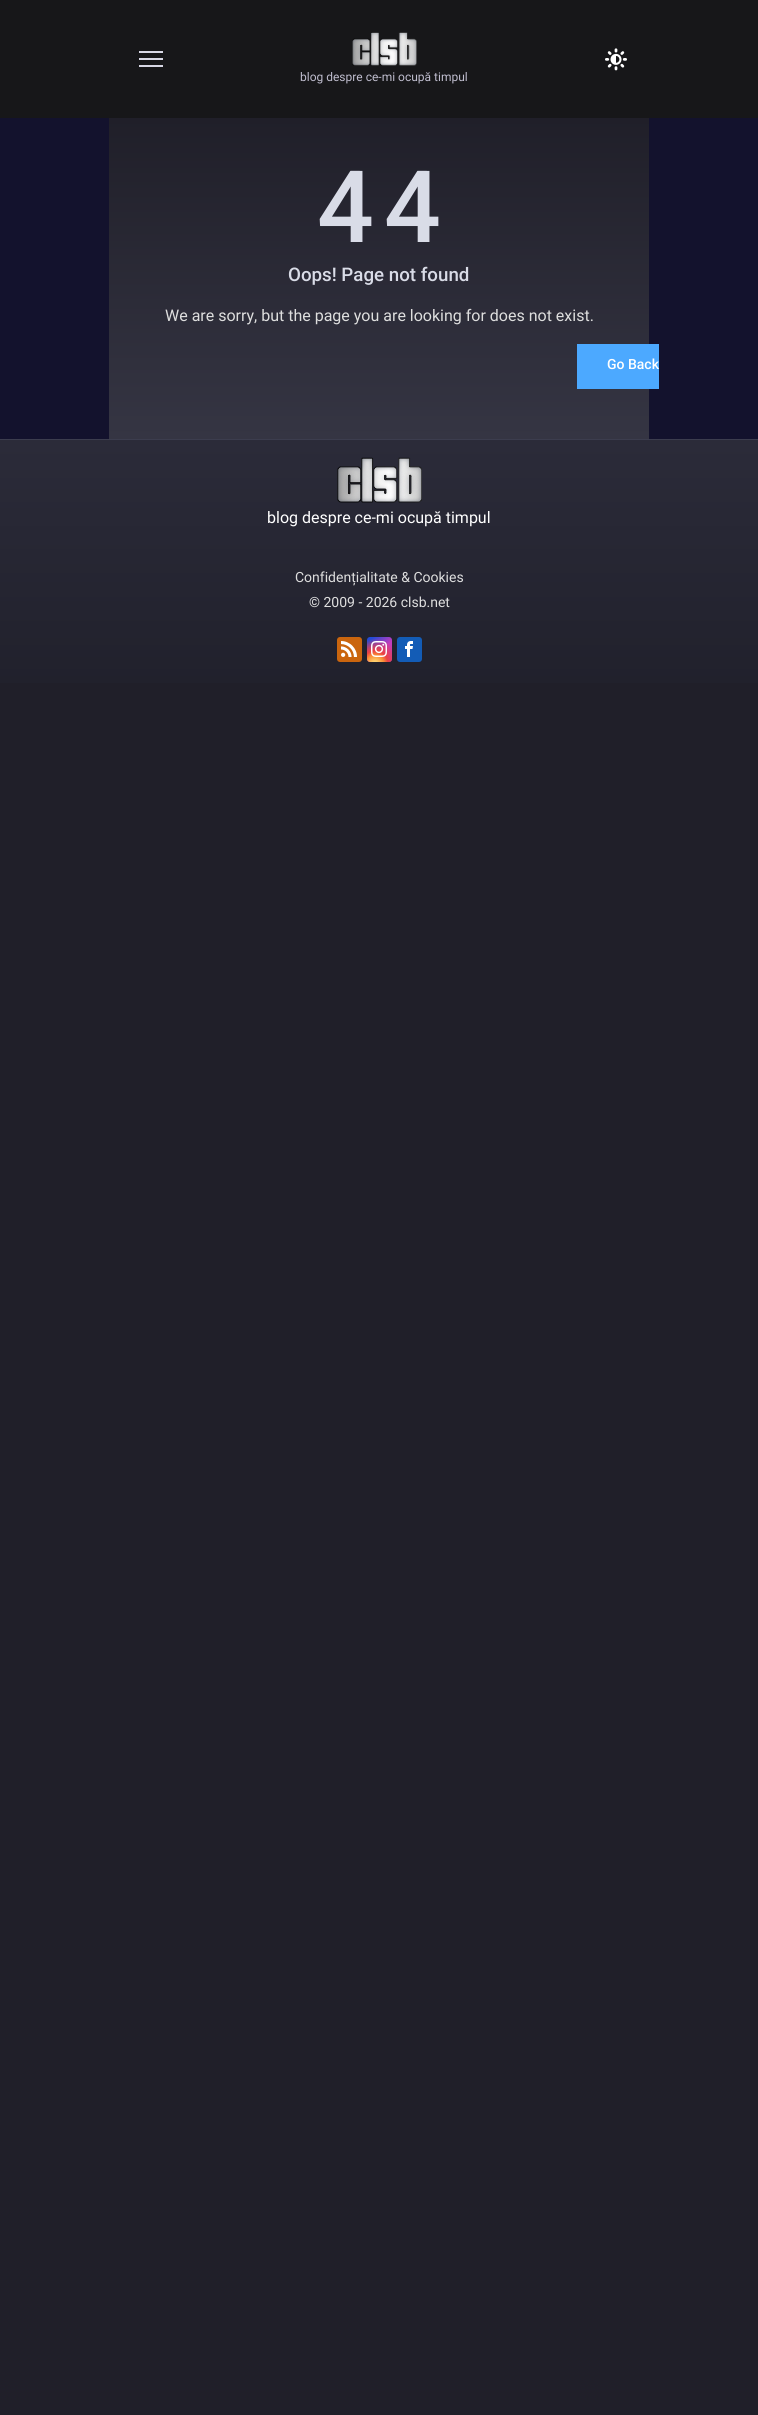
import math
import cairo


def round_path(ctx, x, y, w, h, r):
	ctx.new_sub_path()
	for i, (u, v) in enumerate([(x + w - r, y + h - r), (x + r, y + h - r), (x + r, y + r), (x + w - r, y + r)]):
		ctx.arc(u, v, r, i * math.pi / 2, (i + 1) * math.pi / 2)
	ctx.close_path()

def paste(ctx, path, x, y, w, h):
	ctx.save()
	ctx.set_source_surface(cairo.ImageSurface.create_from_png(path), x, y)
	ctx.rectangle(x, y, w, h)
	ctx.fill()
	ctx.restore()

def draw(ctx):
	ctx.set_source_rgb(0.125, 0.122, 0.161)
	ctx.paint()
	ctx.set_source_rgb(0.075, 0.071, 0.176)
	ctx.rectangle(0, 118, 758, 321)
	ctx.fill()
	ctx.set_source_rgb(0.09, 0.09, 0.098)
	ctx.rectangle(0, 0, 758, 118)
	ctx.fill()
	ctx.set_source_rgb(0.847, 0.847, 0.898)
	ctx.rectangle(139, 51, 24, 2)
	ctx.rectangle(139, 58, 24, 2)
	ctx.rectangle(139, 65, 24, 2)
	ctx.fill()
	paste(ctx, 'media/1.png', 605, 48, 22, 23)
	paste(ctx, 'media/2.png', 352, 32, 65, 34)
	ctx.select_font_face('Roboto')
	ctx.set_font_size(12)
	ctx.set_source_rgb(0.749, 0.741, 0.808)
	ctx.move_to(300, 81)
	ctx.show_text('blog despre ce-mi ocupă timpul')
	gradient = cairo.LinearGradient(379, 118, 379, 439)
	gradient.add_color_stop_rgba(0, 0.125, 0.122, 0.161, 1)
	gradient.add_color_stop_rgba(1, 0.208, 0.208, 0.263, 1)
	ctx.set_source(gradient)
	ctx.rectangle(109, 118, 540, 321)
	ctx.fill()
	ctx.select_font_face('Roboto Medium')
	ctx.set_font_size(100)
	ctx.set_source_rgb(0.851, 0.863, 0.906)
	ctx.move_to(317, 242)
	ctx.show_text('4')
	ctx.move_to(384, 242)
	ctx.show_text('4')
	ctx.set_font_size(18.75)
	ctx.move_to(288, 281)
	ctx.show_text('Oops! Page not found')
	ctx.select_font_face('Roboto')
	ctx.set_font_size(16)
	ctx.set_source_rgb(0.871, 0.871, 0.871)
	ctx.move_to(165, 321)
	ctx.show_text('We are sorry, but the page you are looking for does not exist.')
	ctx.set_source_rgb(0.298, 0.663, 1)
	ctx.rectangle(577, 344, 82, 45)
	ctx.fill()
	ctx.select_font_face('Roboto Medium')
	ctx.set_font_size(14)
	ctx.set_source_rgb(1, 1, 1)
	ctx.move_to(607, 369)
	ctx.show_text('Go Back')
	gradient = cairo.LinearGradient(379, 683, 379, 440)
	gradient.add_color_stop_rgba(0, 0.129, 0.129, 0.173, 1)
	gradient.add_color_stop_rgba(1, 0.169, 0.169, 0.224, 1)
	ctx.set_source(gradient)
	ctx.rectangle(0, 440, 758, 243)
	ctx.fill()
	ctx.set_source_rgb(0.235, 0.239, 0.306)
	ctx.rectangle(0, 439, 758, 1)
	ctx.fill()
	paste(ctx, 'media/3.png', 337, 457, 85, 46)
	ctx.select_font_face('Roboto')
	ctx.set_font_size(16)
	ctx.set_source_rgb(1, 1, 1)
	ctx.move_to(267, 523)
	ctx.show_text('blog despre ce-mi ocupă timpul')
	ctx.set_font_size(14)
	ctx.set_source_rgb(0.871, 0.871, 0.871)
	ctx.move_to(295, 582)
	ctx.show_text('Confidențialitate & Cookies')
	ctx.move_to(309, 607)
	ctx.show_text('© 2009 - 2026 clsb.net')
	ctx.set_source_rgb(0.792, 0.396, 0.055)
	round_path(ctx, 337, 637, 25, 25, 3)
	ctx.fill()
	paste(ctx, 'media/4.png', 341, 641, 16, 16)
	gradient = cairo.LinearGradient(367, 637, 392, 662)
	gradient.add_color_stop_rgba(0.12, 0.137, 0.294, 0.843, 1)
	gradient.add_color_stop_rgba(0.58, 0.765, 0.235, 0.745, 1)
	ctx.set_source(gradient)
	round_path(ctx, 367, 637, 25, 25, 3)
	ctx.fill()
	gradient = cairo.RadialGradient(375, 664, 0, 375, 664, 31)
	gradient.add_color_stop_rgba(0, 1, 0.882, 0.49, 1)
	gradient.add_color_stop_rgba(0.1, 1, 0.804, 0.412, 1)
	gradient.add_color_stop_rgba(0.28, 0.98, 0.569, 0.216, 1)
	gradient.add_color_stop_rgba(0.42, 0.922, 0.255, 0.255, 1)
	gradient.add_color_stop_rgba(0.82, 0.922, 0.255, 0.255, 0)
	ctx.set_source(gradient)
	round_path(ctx, 367, 637, 25, 25, 3)
	ctx.fill()
	paste(ctx, 'media/5.png', 371, 641, 16, 16)
	ctx.set_source_rgb(0.075, 0.361, 0.714)
	round_path(ctx, 397, 637, 25, 25, 3)
	ctx.fill()
	paste(ctx, 'media/6.png', 405, 641, 8, 16)


surface = cairo.ImageSurface(cairo.FORMAT_RGB24, 758, 2415)
ctx = cairo.Context(surface)
options = cairo.FontOptions()
options.set_hint_metrics(cairo.HINT_METRICS_OFF)
options.set_hint_style(cairo.HINT_STYLE_NONE)
ctx.set_font_options(options)
ctx.set_miter_limit(4)
draw(ctx)
surface.write_to_png('image.png')
